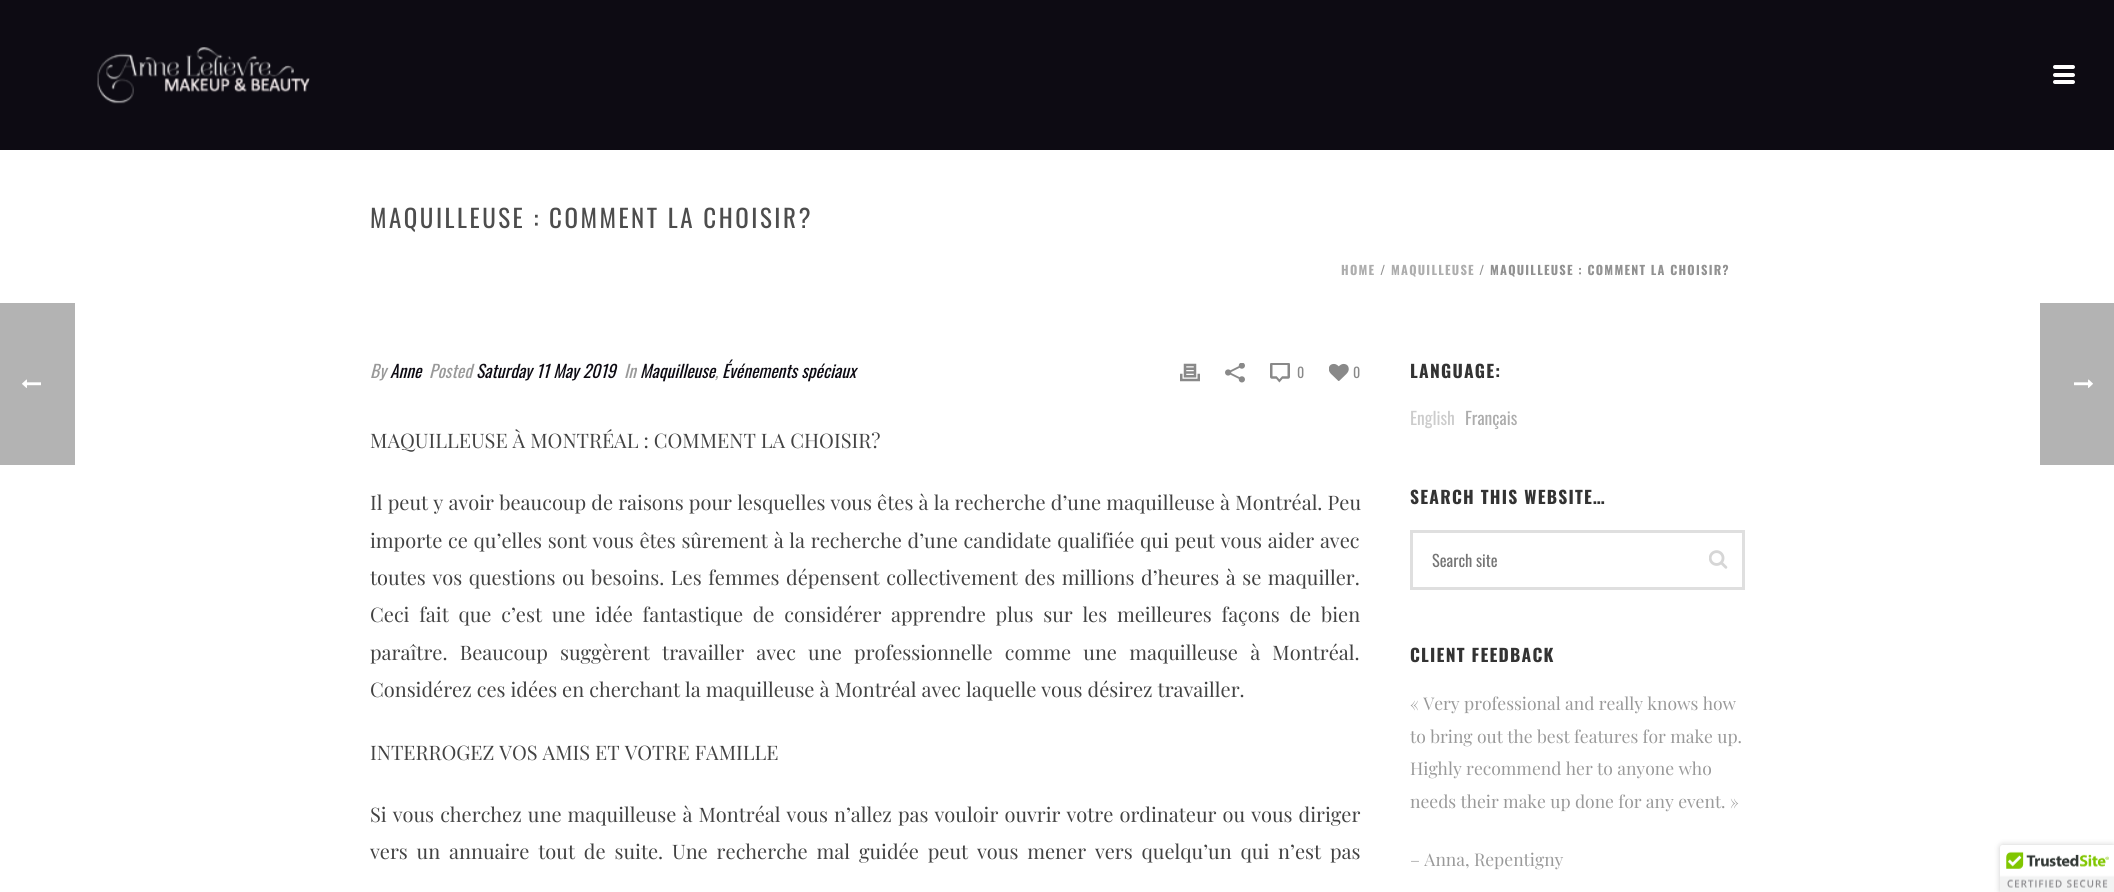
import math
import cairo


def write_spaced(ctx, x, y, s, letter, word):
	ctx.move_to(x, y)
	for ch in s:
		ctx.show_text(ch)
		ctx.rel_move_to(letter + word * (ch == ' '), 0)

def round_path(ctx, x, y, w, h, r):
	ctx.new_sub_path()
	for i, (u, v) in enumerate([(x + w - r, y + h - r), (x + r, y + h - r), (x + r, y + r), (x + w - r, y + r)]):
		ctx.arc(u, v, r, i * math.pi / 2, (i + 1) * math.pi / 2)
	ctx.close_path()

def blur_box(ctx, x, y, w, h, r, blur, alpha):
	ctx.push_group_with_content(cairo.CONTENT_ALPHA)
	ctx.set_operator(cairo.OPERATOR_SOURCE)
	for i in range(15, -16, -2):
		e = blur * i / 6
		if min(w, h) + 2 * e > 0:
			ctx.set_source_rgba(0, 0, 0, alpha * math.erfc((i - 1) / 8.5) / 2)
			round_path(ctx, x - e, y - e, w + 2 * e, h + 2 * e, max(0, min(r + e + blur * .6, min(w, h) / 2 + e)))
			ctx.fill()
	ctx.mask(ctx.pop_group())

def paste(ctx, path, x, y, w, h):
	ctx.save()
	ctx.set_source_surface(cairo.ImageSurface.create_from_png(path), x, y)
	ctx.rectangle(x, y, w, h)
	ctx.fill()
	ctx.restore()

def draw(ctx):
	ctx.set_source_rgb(1, 1, 1)
	ctx.paint()
	ctx.set_source_rgb(0.702, 0.702, 0.702)
	ctx.rectangle(0, 303, 75, 162)
	ctx.fill()
	paste(ctx, 'media/1.png', 22, 379, 19, 9)
	ctx.set_source_rgb(0.051, 0.043, 0.075)
	ctx.rectangle(0, 0, 2114, 150)
	ctx.fill()
	paste(ctx, 'media/2.png', 97, 47, 213, 57)
	ctx.set_source_rgb(1, 1, 1)
	round_path(ctx, 2053, 65, 22, 4, 2)
	ctx.fill()
	round_path(ctx, 2053, 73, 22, 4, 2)
	ctx.fill()
	round_path(ctx, 2053, 80, 22, 4, 2)
	ctx.fill()
	ctx.select_font_face('Oswald')
	ctx.set_font_size(25)
	ctx.set_source_rgb(0.302, 0.302, 0.302)
	write_spaced(ctx, 370, 228, 'MAQUILLEUSE : COMMENT LA CHOISIR?', 2.5, 0)
	ctx.select_font_face('Oswald', cairo.FONT_SLANT_NORMAL, cairo.FONT_WEIGHT_BOLD)
	ctx.set_font_size(12.5)
	ctx.set_source_rgb(0.678, 0.678, 0.678)
	write_spaced(ctx, 1341, 275, 'HOME', 1.25, 0)
	ctx.set_source_rgb(0.569, 0.569, 0.569)
	write_spaced(ctx, 1380, 275, '/', 1.25, 0)
	ctx.set_source_rgb(0.678, 0.678, 0.678)
	write_spaced(ctx, 1391, 275, 'MAQUILLEUSE', 1.25, 0)
	ctx.set_source_rgb(0.569, 0.569, 0.569)
	write_spaced(ctx, 1479, 275, '/ MAQUILLEUSE : COMMENT LA CHOISIR?', 1.25, 0)
	ctx.select_font_face('Oswald', cairo.FONT_SLANT_ITALIC)
	ctx.set_font_size(17.5)
	ctx.set_source_rgb(0.6, 0.6, 0.6)
	ctx.move_to(370, 378)
	ctx.show_text('By')
	ctx.set_source_rgb(0.051, 0.043, 0.075)
	ctx.move_to(390, 378)
	ctx.show_text('Anne')
	ctx.set_source_rgb(0.6, 0.6, 0.6)
	ctx.move_to(429, 378)
	ctx.show_text('Posted')
	ctx.set_source_rgb(0.051, 0.043, 0.075)
	ctx.move_to(476, 378)
	ctx.show_text('Saturday 11 May 2019')
	ctx.set_source_rgb(0.6, 0.6, 0.6)
	ctx.move_to(624, 378)
	ctx.show_text('In')
	ctx.set_source_rgb(0.051, 0.043, 0.075)
	ctx.move_to(640, 378)
	ctx.show_text('Maquilleuse')
	ctx.move_to(722, 378)
	ctx.show_text('Événements spéciaux')
	ctx.set_source_rgb(0.6, 0.6, 0.6)
	ctx.move_to(715, 378)
	ctx.show_text(',')
	paste(ctx, 'media/3.png', 1180, 363, 20, 19)
	paste(ctx, 'media/4.png', 1225, 363, 20, 20)
	paste(ctx, 'media/5.png', 1270, 363, 20, 20)
	ctx.select_font_face('Oswald')
	ctx.set_font_size(14)
	ctx.set_source_rgb(0.537, 0.537, 0.537)
	ctx.move_to(1297, 378)
	ctx.show_text('0')
	paste(ctx, 'media/6.png', 1329, 363, 20, 18)
	ctx.move_to(1353, 378)
	ctx.show_text('0')
	ctx.select_font_face('Playfair Display')
	ctx.set_font_size(20)
	ctx.set_source_rgb(0.259, 0.259, 0.259)
	ctx.move_to(370, 448)
	ctx.show_text('MAQUILLEUSE À MONTRÉAL : COMMENT LA CHOISIR?')
	write_spaced(ctx, 370, 510, 'Il peut y avoir beaucoup de raisons pour lesquelles vous êtes à la recherche d’une maquilleuse à Montréal. Peu', 0, 0.2)
	write_spaced(ctx, 370, 548, 'importe ce qu’elles sont vous êtes sûrement à la recherche d’une candidate qualifiée qui peut vous aider avec', 0, 0.75)
	write_spaced(ctx, 370, 585, 'toutes vos questions ou besoins. Les femmes dépensent collectivement des millions d’heures à se maquiller.', 0, 1.6)
	write_spaced(ctx, 370, 622, 'Ceci fait que c’est une idée fantastique de considérer apprendre plus sur les meilleures façons de bien', 0, 4.75)
	write_spaced(ctx, 370, 660, 'paraître. Beaucoup suggèrent travailler avec une professionnelle comme une maquilleuse à Montréal.', 0, 7.25)
	ctx.move_to(370, 697)
	ctx.show_text('Considérez ces idées en cherchant la maquilleuse à Montréal avec laquelle vous désirez travailler.')
	ctx.move_to(370, 760)
	ctx.show_text('INTERROGEZ VOS AMIS ET VOTRE FAMILLE')
	write_spaced(ctx, 370, 822, 'Si vous cherchez une maquilleuse à Montréal vous n’allez pas vouloir ouvrir votre ordinateur ou vous diriger', 0, 1.1)
	write_spaced(ctx, 370, 859, 'vers un annuaire tout de suite. Une recherche mal guidée peut vous mener vers quelqu’un qui n’est pas', 0, 3.9)
	ctx.select_font_face('Oswald', cairo.FONT_SLANT_NORMAL, cairo.FONT_WEIGHT_BOLD)
	ctx.set_font_size(17.5)
	ctx.set_source_rgb(0.2, 0.2, 0.2)
	write_spaced(ctx, 1410, 378, 'LANGUAGE:', 1.25, 0)
	ctx.select_font_face('Oswald')
	ctx.set_source_rgb(0.8, 0.8, 0.8)
	ctx.move_to(1410, 425)
	ctx.show_text('English')
	ctx.set_source_rgb(0.678, 0.678, 0.678)
	ctx.move_to(1465, 425)
	ctx.show_text('Français')
	ctx.select_font_face('Oswald', cairo.FONT_SLANT_NORMAL, cairo.FONT_WEIGHT_BOLD)
	ctx.set_source_rgb(0.2, 0.2, 0.2)
	write_spaced(ctx, 1410, 504, 'SEARCH THIS WEBSITE…', 1.25, 0)
	ctx.rectangle(1411.5, 531.5, 332, 57)
	ctx.set_source_rgb(0.875, 0.875, 0.875)
	ctx.set_line_width(3)
	ctx.stroke()
	ctx.select_font_face('Oswald')
	ctx.set_font_size(16.25)
	ctx.set_source_rgb(0.459, 0.459, 0.459)
	ctx.move_to(1432, 567)
	ctx.show_text('Search site')
	paste(ctx, 'media/7.png', 1709, 550, 19, 19)
	ctx.select_font_face('Oswald', cairo.FONT_SLANT_NORMAL, cairo.FONT_WEIGHT_BOLD)
	ctx.set_font_size(17.5)
	ctx.set_source_rgb(0.2, 0.2, 0.2)
	write_spaced(ctx, 1410, 662, 'CLIENT FEEDBACK', 1.25, 0)
	ctx.select_font_face('Playfair Display')
	ctx.set_source_rgb(0.6, 0.6, 0.6)
	for x, y, s in [
		(1410, 710, '« Very professional and really knows how'),
		(1410, 743, 'to bring out the best features for make up.'),
		(1410, 775, 'Highly recommend her to anyone who'),
		(1410, 808, 'needs their make up done for any event. »'),
		(1410, 866, '– Anna, Repentigny'),
	]:
		ctx.move_to(x, y)
		ctx.show_text(s)
	ctx.set_source_rgb(0.702, 0.702, 0.702)
	ctx.rectangle(2040, 303, 74, 162)
	ctx.fill()
	paste(ctx, 'media/8.png', 2074, 379, 19, 9)
	ctx.set_source_rgb(0, 0, 0)
	blur_box(ctx, 2000, 845, 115, 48, 2.5, 3, 0.2)
	ctx.set_source_rgb(1, 1, 1)
	ctx.new_path()
	ctx.move_to(2002.5, 845)
	ctx.line_to(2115, 845)
	ctx.line_to(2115, 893)
	ctx.line_to(2000, 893)
	ctx.line_to(2000, 847.5)
	ctx.curve_to(2000, 846, 2001, 845, 2002.5, 845)
	ctx.close_path()
	ctx.fill()
	paste(ctx, 'media/9.png', 2000, 851, 114, 41)


surface = cairo.ImageSurface(cairo.FORMAT_RGB24, 2114, 892)
ctx = cairo.Context(surface)
options = cairo.FontOptions()
options.set_hint_metrics(cairo.HINT_METRICS_OFF)
options.set_hint_style(cairo.HINT_STYLE_NONE)
ctx.set_font_options(options)
ctx.set_miter_limit(4)
draw(ctx)
surface.write_to_png('image.png')
